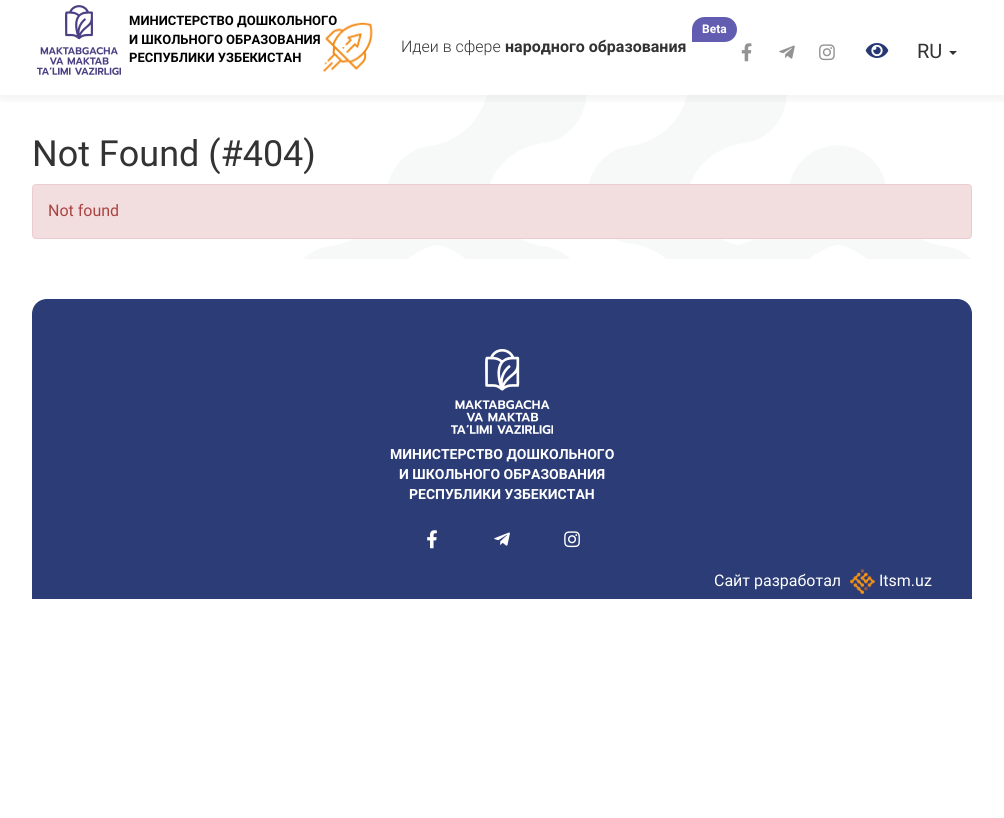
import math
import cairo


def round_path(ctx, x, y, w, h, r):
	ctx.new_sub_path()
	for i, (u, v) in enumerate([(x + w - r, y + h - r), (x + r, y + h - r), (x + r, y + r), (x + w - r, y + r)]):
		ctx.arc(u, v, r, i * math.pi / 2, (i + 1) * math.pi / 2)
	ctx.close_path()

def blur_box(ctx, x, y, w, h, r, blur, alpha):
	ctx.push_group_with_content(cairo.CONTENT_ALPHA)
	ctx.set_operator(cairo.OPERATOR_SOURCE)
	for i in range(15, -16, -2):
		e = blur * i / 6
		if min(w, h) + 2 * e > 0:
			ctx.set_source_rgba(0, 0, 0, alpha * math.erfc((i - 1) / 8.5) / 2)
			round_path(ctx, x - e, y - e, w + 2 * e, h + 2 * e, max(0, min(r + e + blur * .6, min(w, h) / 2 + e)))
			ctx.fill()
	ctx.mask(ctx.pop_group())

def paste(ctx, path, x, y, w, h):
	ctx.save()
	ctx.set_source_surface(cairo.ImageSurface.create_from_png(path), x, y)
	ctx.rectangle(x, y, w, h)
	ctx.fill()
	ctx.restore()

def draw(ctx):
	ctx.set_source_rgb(1, 1, 1)
	ctx.paint()
	paste(ctx, 'media/7.png', 303, 95, 668, 164)
	ctx.save()
	ctx.rectangle(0, 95, 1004, 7)
	ctx.clip()
	ctx.set_source_rgb(0, 0, 0)
	blur_box(ctx, 0, 1, 1004, 95, 0, 9, 0.08)
	ctx.restore()
	paste(ctx, 'media/1.png', 37, 5, 84, 70)
	ctx.select_font_face('Roboto', cairo.FONT_SLANT_NORMAL, cairo.FONT_WEIGHT_BOLD)
	ctx.set_font_size(13)
	ctx.set_source_rgb(0, 0, 0)
	for x, y, s in [
		(129, 25, 'МИНИСТЕРСТВО ДОШКОЛЬНОГО'),
		(129, 44, 'И ШКОЛЬНОГО ОБРАЗОВАНИЯ'),
		(129, 62, 'РЕСПУБЛИКИ УЗБЕКИСТАН'),
	]:
		ctx.move_to(x, y)
		ctx.show_text(s)
	paste(ctx, 'media/2.png', 323, 22, 50, 51)
	ctx.set_source_rgb(0.388, 0.365, 0.698)
	ctx.new_path()
	ctx.move_to(704.5, 17)
	ctx.line_to(724.5, 17)
	ctx.curve_to(731.5, 17, 737, 22.5, 737, 29.5)
	ctx.curve_to(737, 36.5, 731.5, 42, 724.5, 42)
	ctx.line_to(692, 42)
	ctx.line_to(692, 29.5)
	ctx.curve_to(692, 22.5, 697.5, 17, 704.5, 17)
	ctx.close_path()
	ctx.fill()
	ctx.set_font_size(12)
	ctx.set_source_rgb(1, 1, 1)
	ctx.move_to(702, 33)
	ctx.show_text('Beta')
	ctx.select_font_face('Roboto Light')
	ctx.set_font_size(16)
	ctx.set_source_rgb(0.2, 0.2, 0.2)
	ctx.move_to(401, 52)
	ctx.show_text('Идеи в сфере')
	ctx.select_font_face('Roboto', cairo.FONT_SLANT_NORMAL, cairo.FONT_WEIGHT_BOLD)
	ctx.move_to(505, 52)
	ctx.show_text('народного образования')
	paste(ctx, 'media/3.png', 741, 43, 11, 19)
	paste(ctx, 'media/4.png', 779, 45, 16, 14)
	paste(ctx, 'media/5.png', 819, 44, 16, 17)
	paste(ctx, 'media/6.png', 865, 43, 24, 15)
	ctx.select_font_face('Roboto')
	ctx.set_font_size(20)
	ctx.move_to(917, 58)
	ctx.show_text('RU')
	ctx.new_path()
	ctx.move_to(949, 51)
	ctx.line_to(957, 51)
	ctx.line_to(953, 55)
	ctx.close_path()
	ctx.fill()
	ctx.set_font_size(36)
	ctx.move_to(32, 166)
	ctx.show_text('Not Found (#404)')
	ctx.set_source_rgb(0.949, 0.871, 0.871)
	round_path(ctx, 32.5, 184.5, 939, 54, 3.5)
	ctx.fill_preserve()
	ctx.set_source_rgb(0.922, 0.8, 0.82)
	ctx.set_line_width(1)
	ctx.stroke()
	ctx.set_font_size(16)
	ctx.set_source_rgb(0.663, 0.267, 0.259)
	ctx.move_to(48, 216)
	ctx.show_text('Not found')
	ctx.set_source_rgb(0.169, 0.235, 0.463)
	ctx.new_path()
	ctx.move_to(47, 299)
	ctx.line_to(957, 299)
	ctx.curve_to(965.5, 299, 972, 305.5, 972, 314)
	ctx.line_to(972, 599)
	ctx.line_to(32, 599)
	ctx.line_to(32, 314)
	ctx.curve_to(32, 305.5, 38.5, 299, 47, 299)
	ctx.close_path()
	ctx.fill()
	paste(ctx, 'media/8.png', 451, 349, 102, 85)
	ctx.select_font_face('Roboto', cairo.FONT_SLANT_NORMAL, cairo.FONT_WEIGHT_BOLD)
	ctx.set_font_size(14)
	ctx.set_source_rgb(1, 1, 1)
	for x, y, s in [
		(390, 459, 'МИНИСТЕРСТВО ДОШКОЛЬНОГО'),
		(399, 479, 'И ШКОЛЬНОГО ОБРАЗОВАНИЯ'),
		(409, 499, 'РЕСПУБЛИКИ УЗБЕКИСТАН'),
	]:
		ctx.move_to(x, y)
		ctx.show_text(s)
	paste(ctx, 'media/9.png', 427, 530, 10, 19)
	paste(ctx, 'media/10.png', 494, 532, 16, 14)
	paste(ctx, 'media/11.png', 564, 531, 16, 17)
	ctx.select_font_face('Roboto')
	ctx.set_font_size(16)
	ctx.move_to(714, 586)
	ctx.show_text('Сайт разработал')
	paste(ctx, 'media/12.png', 850, 569, 25, 25)
	ctx.move_to(879, 586)
	ctx.show_text('Itsm.uz')


surface = cairo.ImageSurface(cairo.FORMAT_RGB24, 1004, 818)
ctx = cairo.Context(surface)
options = cairo.FontOptions()
options.set_hint_metrics(cairo.HINT_METRICS_OFF)
options.set_hint_style(cairo.HINT_STYLE_NONE)
ctx.set_font_options(options)
ctx.set_miter_limit(4)
draw(ctx)
surface.write_to_png('image.png')
